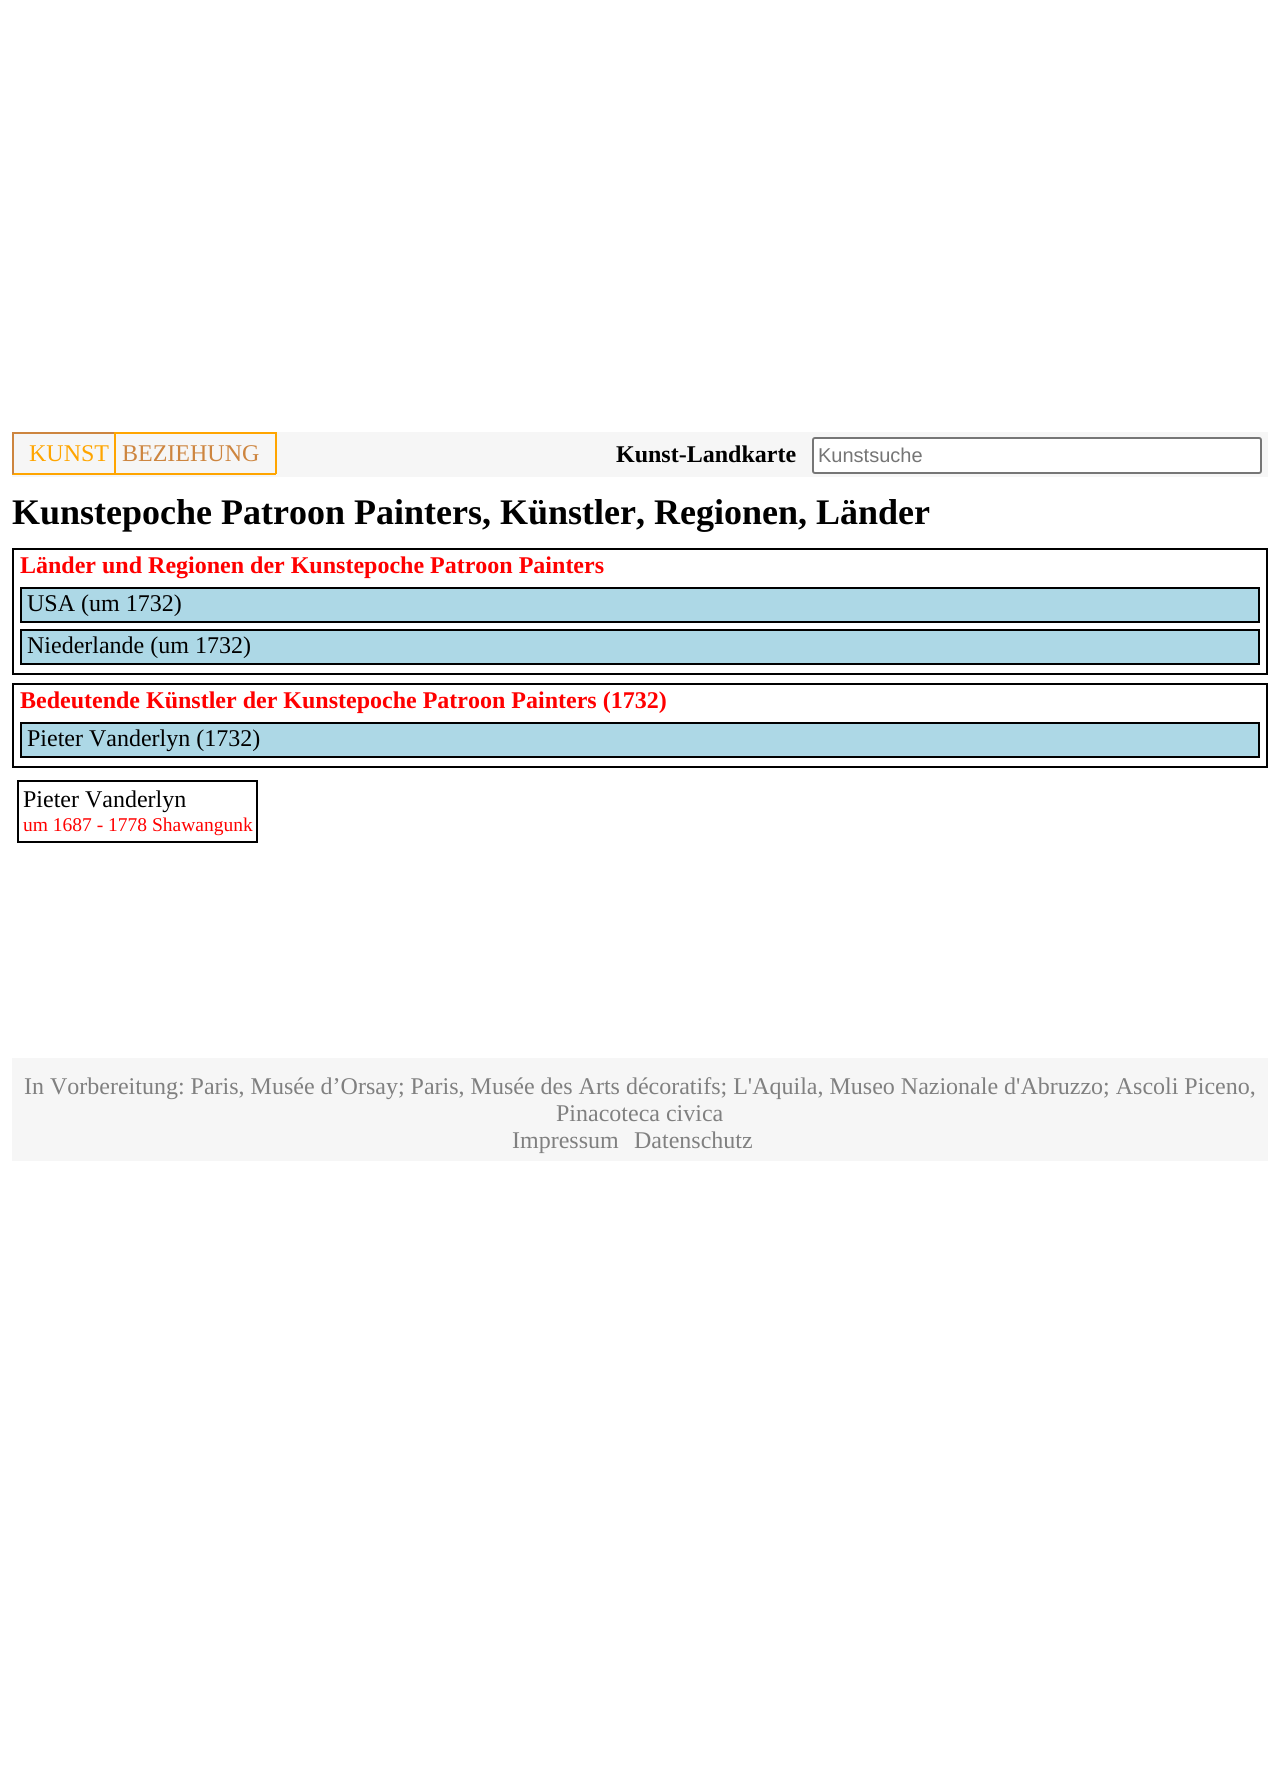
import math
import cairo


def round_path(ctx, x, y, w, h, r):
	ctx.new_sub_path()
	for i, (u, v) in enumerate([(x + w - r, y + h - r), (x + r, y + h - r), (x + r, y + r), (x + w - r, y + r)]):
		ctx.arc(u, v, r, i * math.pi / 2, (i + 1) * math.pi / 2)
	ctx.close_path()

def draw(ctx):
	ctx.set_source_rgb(1, 1, 1)
	ctx.paint()
	ctx.set_source_rgb(0.961, 0.961, 0.961)
	ctx.rectangle(12, 432, 1256, 45)
	ctx.fill()
	ctx.set_source_rgb(0.804, 0.522, 0.247)
	ctx.rectangle(12, 432, 104, 2)
	ctx.fill()
	ctx.set_source_rgb(1, 0.647, 0)
	ctx.rectangle(114, 432, 2, 42)
	ctx.rectangle(12, 473, 104, 2)
	ctx.fill()
	ctx.set_source_rgb(0.804, 0.522, 0.247)
	ctx.rectangle(12, 432, 2, 42)
	ctx.fill()
	ctx.select_font_face('Liberation Serif')
	ctx.set_font_size(24)
	ctx.set_source_rgb(1, 0.647, 0)
	ctx.move_to(29, 461)
	ctx.show_text('KUNST')
	ctx.rectangle(116, 432, 160, 2)
	ctx.rectangle(275, 432, 2, 42)
	ctx.rectangle(116, 473, 160, 2)
	ctx.fill()
	ctx.set_source_rgb(0.804, 0.522, 0.247)
	ctx.move_to(122, 461)
	ctx.show_text('BEZIEHUNG')
	ctx.select_font_face('Liberation Serif', cairo.FONT_SLANT_NORMAL, cairo.FONT_WEIGHT_BOLD)
	ctx.set_source_rgb(0, 0, 0)
	ctx.move_to(616, 462)
	ctx.show_text('Kunst-Landkarte')
	ctx.set_source_rgb(1, 1, 1)
	round_path(ctx, 813, 438, 448, 35, 2)
	ctx.fill_preserve()
	ctx.set_source_rgb(0.463, 0.463, 0.463)
	ctx.stroke()
	ctx.select_font_face('Liberation Sans')
	ctx.set_font_size(20)
	ctx.set_source_rgb(0.459, 0.459, 0.459)
	ctx.move_to(818, 462)
	ctx.show_text('Kunstsuche')
	ctx.select_font_face('Liberation Serif', cairo.FONT_SLANT_NORMAL, cairo.FONT_WEIGHT_BOLD)
	ctx.set_font_size(36)
	ctx.set_source_rgb(0, 0, 0)
	ctx.move_to(12, 524)
	ctx.show_text('Kunstepoche Patroon Painters, Künstler, Regionen, Länder')
	ctx.rectangle(13, 549, 1254, 125)
	ctx.stroke()
	ctx.set_font_size(24)
	ctx.set_source_rgb(1, 0, 0)
	ctx.move_to(20, 573)
	ctx.show_text('Länder und Regionen der Kunstepoche Patroon Painters')
	ctx.set_source_rgb(0.678, 0.847, 0.902)
	ctx.rectangle(21, 588, 1238, 34)
	ctx.fill_preserve()
	ctx.set_source_rgb(0, 0, 0)
	ctx.stroke()
	ctx.select_font_face('Liberation Serif')
	ctx.move_to(27, 611)
	ctx.show_text('USA (um 1732)')
	ctx.set_source_rgb(0.678, 0.847, 0.902)
	ctx.rectangle(21, 630, 1238, 34)
	ctx.fill_preserve()
	ctx.set_source_rgb(0, 0, 0)
	ctx.stroke()
	ctx.move_to(27, 653)
	ctx.show_text('Niederlande (um 1732)')
	ctx.rectangle(13, 684, 1254, 83)
	ctx.stroke()
	ctx.select_font_face('Liberation Serif', cairo.FONT_SLANT_NORMAL, cairo.FONT_WEIGHT_BOLD)
	ctx.set_source_rgb(1, 0, 0)
	ctx.move_to(20, 708)
	ctx.show_text('Bedeutende Künstler der Kunstepoche Patroon Painters (1732)')
	ctx.set_source_rgb(0.678, 0.847, 0.902)
	ctx.rectangle(21, 723, 1238, 34)
	ctx.fill_preserve()
	ctx.set_source_rgb(0, 0, 0)
	ctx.stroke()
	ctx.select_font_face('Liberation Serif')
	ctx.move_to(27, 746)
	ctx.show_text('Pieter Vanderlyn (1732)')
	ctx.rectangle(18, 781, 239, 61)
	ctx.stroke()
	ctx.move_to(23, 807)
	ctx.show_text('Pieter Vanderlyn')
	ctx.set_font_size(19.5)
	ctx.set_source_rgb(1, 0, 0)
	ctx.move_to(23, 831)
	ctx.show_text('um 1687 - 1778 Shawangunk')
	ctx.set_source_rgb(0.961, 0.961, 0.961)
	ctx.rectangle(12, 1058, 1256, 103)
	ctx.fill()
	ctx.set_font_size(24)
	ctx.set_source_rgb(0.502, 0.502, 0.502)
	for x, y, s in [
		(24, 1094, 'In Vorbereitung: Paris, Musée d’Orsay; Paris, Musée des Arts décoratifs; L\'Aquila, Museo Nazionale d\'Abruzzo; Ascoli Piceno,'),
		(556, 1121, 'Pinacoteca civica'),
		(512, 1148, 'Impressum'),
		(634, 1148, 'Datenschutz'),
	]:
		ctx.move_to(x, y)
		ctx.show_text(s)


surface = cairo.ImageSurface(cairo.FORMAT_RGB24, 1279, 1765)
ctx = cairo.Context(surface)
options = cairo.FontOptions()
options.set_hint_metrics(cairo.HINT_METRICS_OFF)
options.set_hint_style(cairo.HINT_STYLE_NONE)
ctx.set_font_options(options)
ctx.set_miter_limit(4)
draw(ctx)
surface.write_to_png('image.png')
